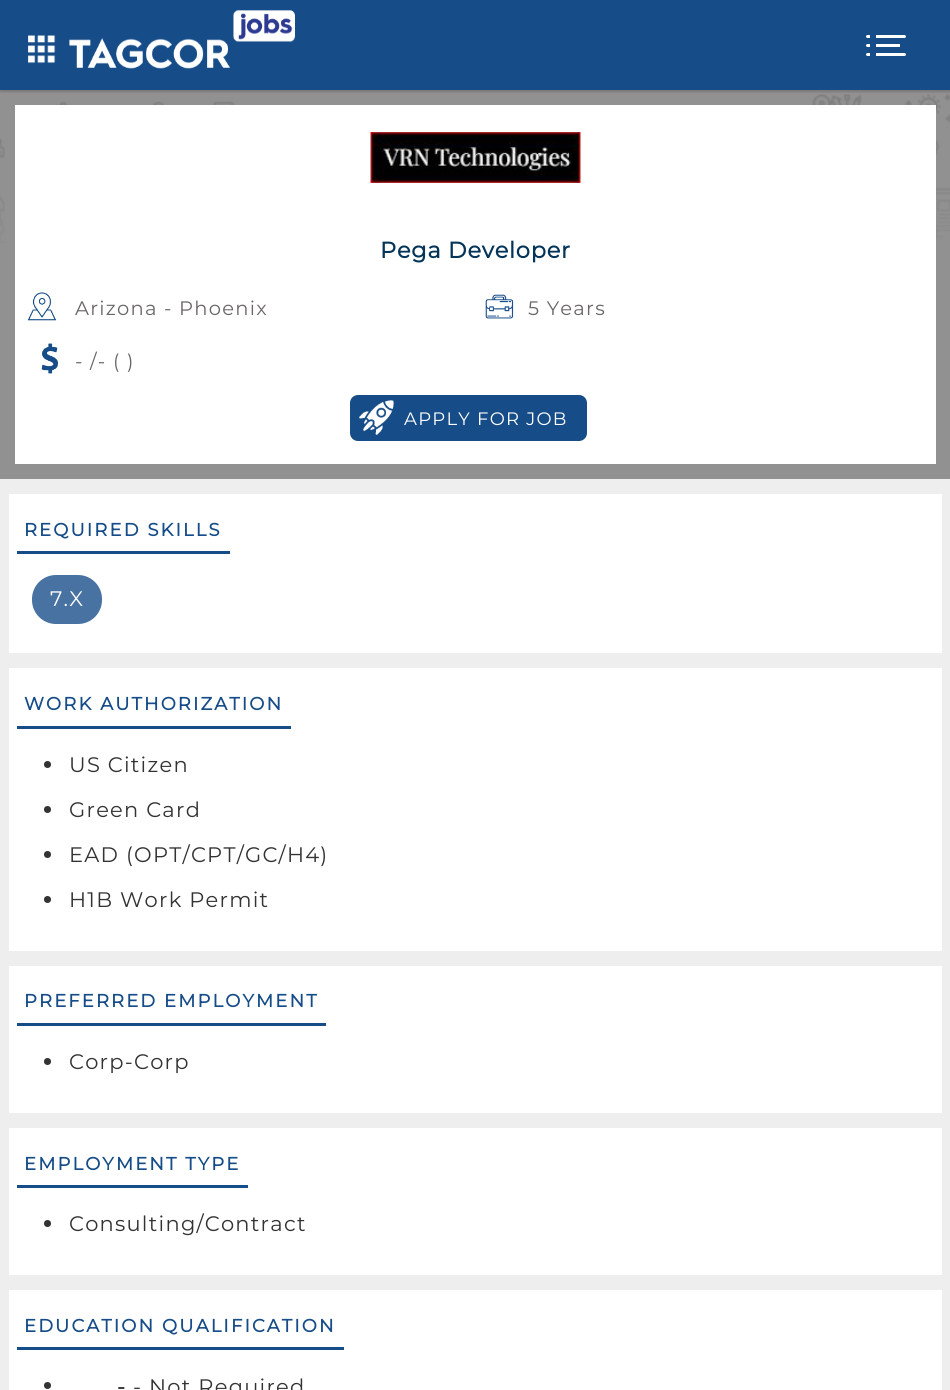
import math
import cairo


def write_spaced(ctx, x, y, s, letter, word):
	ctx.move_to(x, y)
	for ch in s:
		ctx.show_text(ch)
		ctx.rel_move_to(letter + word * (ch == ' '), 0)

def round_path(ctx, x, y, w, h, r):
	ctx.new_sub_path()
	for i, (u, v) in enumerate([(x + w - r, y + h - r), (x + r, y + h - r), (x + r, y + r), (x + w - r, y + r)]):
		ctx.arc(u, v, r, i * math.pi / 2, (i + 1) * math.pi / 2)
	ctx.close_path()

def blur_box(ctx, x, y, w, h, r, blur, alpha):
	ctx.push_group_with_content(cairo.CONTENT_ALPHA)
	ctx.set_operator(cairo.OPERATOR_SOURCE)
	for i in range(15, -16, -2):
		e = blur * i / 6
		if min(w, h) + 2 * e > 0:
			ctx.set_source_rgba(0, 0, 0, alpha * math.erfc((i - 1) / 8.5) / 2)
			round_path(ctx, x - e, y - e, w + 2 * e, h + 2 * e, max(0, min(r + e + blur * .6, min(w, h) / 2 + e)))
			ctx.fill()
	ctx.mask(ctx.pop_group())

def paste(ctx, path, x, y, w, h):
	ctx.save()
	ctx.set_source_surface(cairo.ImageSurface.create_from_png(path), x, y)
	ctx.rectangle(x, y, w, h)
	ctx.fill()
	ctx.restore()

def draw(ctx):
	ctx.set_source_rgb(0.933, 0.933, 0.933)
	ctx.paint()
	ctx.set_source_rgb(0.569, 0.569, 0.569)
	ctx.rectangle(0, 90, 950, 389)
	ctx.fill()
	paste(ctx, 'media/3.png', 0, 94, 950, 178)
	ctx.set_source_rgb(0, 0, 0)
	blur_box(ctx, 0, 2, 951, 90, 0, 1, 0.16)
	ctx.set_source_rgb(0.086, 0.298, 0.533)
	ctx.rectangle(0, 0, 950, 90)
	ctx.fill()
	paste(ctx, 'media/1.png', 28, 35, 28, 29)
	paste(ctx, 'media/2.png', 69, 10, 226, 59)
	ctx.set_source_rgb(1, 1, 1)
	round_path(ctx, 866, 35, 40, 3, 1.5)
	ctx.fill()
	ctx.set_source_rgb(0.086, 0.298, 0.533)
	ctx.rectangle(870, 35, 6, 3)
	ctx.fill()
	ctx.set_source_rgb(1, 1, 1)
	round_path(ctx, 866, 44, 40, 3, 1.5)
	ctx.fill()
	ctx.set_source_rgb(0.086, 0.298, 0.533)
	ctx.rectangle(870, 44, 6, 3)
	ctx.fill()
	ctx.rectangle(900, 44, 6, 3)
	ctx.fill()
	ctx.set_source_rgb(1, 1, 1)
	round_path(ctx, 866, 53, 40, 3, 1.5)
	ctx.fill()
	ctx.set_source_rgb(0.086, 0.298, 0.533)
	ctx.rectangle(870, 53, 6, 3)
	ctx.fill()
	ctx.set_source_rgb(1, 1, 1)
	ctx.rectangle(15, 105, 921, 359)
	ctx.fill()
	paste(ctx, 'media/4.png', 370, 132, 211, 51)
	ctx.select_font_face('Montserrat', cairo.FONT_SLANT_NORMAL, cairo.FONT_WEIGHT_BOLD)
	ctx.set_font_size(22.5)
	ctx.set_source_rgb(0.016, 0.204, 0.345)
	write_spaced(ctx, 380, 258, 'Pega Developer', 0.75, 0)
	paste(ctx, 'media/5.png', 27, 292, 30, 29)
	ctx.select_font_face('Montserrat Thin')
	ctx.set_font_size(19.5)
	ctx.set_source_rgb(0.42, 0.4, 0.4)
	write_spaced(ctx, 75, 315, 'Arizona - Phoenix', 1.25, 0)
	paste(ctx, 'media/6.png', 485, 294, 29, 25)
	write_spaced(ctx, 528, 315, '5 Years', 1.25, 0)
	paste(ctx, 'media/7.png', 41, 343, 17, 31)
	write_spaced(ctx, 75, 368, '- /- ( )', 1.25, 0)
	ctx.set_source_rgb(0.086, 0.298, 0.533)
	round_path(ctx, 351, 396, 235, 44, 7)
	ctx.fill_preserve()
	ctx.stroke()
	paste(ctx, 'media/8.png', 359, 400, 35, 35)
	ctx.set_font_size(18)
	ctx.set_source_rgb(1, 1, 1)
	write_spaced(ctx, 404, 425, 'APPLY FOR JOB', 1.25, 0)
	ctx.rectangle(9, 494, 933, 159)
	ctx.fill()
	ctx.set_source_rgb(0.086, 0.298, 0.533)
	ctx.rectangle(17, 551, 213, 3)
	ctx.fill()
	ctx.select_font_face('Montserrat', cairo.FONT_SLANT_NORMAL, cairo.FONT_WEIGHT_BOLD)
	write_spaced(ctx, 24, 536, 'REQUIRED SKILLS', 2.1, 0)
	ctx.set_source_rgb(0.278, 0.447, 0.631)
	round_path(ctx, 32, 575, 70, 49, 24)
	ctx.fill()
	ctx.select_font_face('Montserrat Thin')
	ctx.set_font_size(21)
	ctx.set_source_rgb(1, 1, 1)
	write_spaced(ctx, 50, 606, '7.X', 1.25, 0)
	ctx.rectangle(9, 668, 933, 283)
	ctx.fill()
	ctx.set_source_rgb(0.086, 0.298, 0.533)
	ctx.rectangle(17, 726, 274, 3)
	ctx.fill()
	ctx.select_font_face('Montserrat', cairo.FONT_SLANT_NORMAL, cairo.FONT_WEIGHT_BOLD)
	ctx.set_font_size(18)
	write_spaced(ctx, 24, 710, 'WORK AUTHORIZATION', 2.1, 0)
	ctx.set_source_rgb(0.2, 0.2, 0.2)
	ctx.new_path()
	ctx.arc(47.5, 764.5, 3.5, 0, 2 * math.pi)
	ctx.fill()
	ctx.select_font_face('Montserrat Thin')
	ctx.set_font_size(21)
	write_spaced(ctx, 69, 772, 'US Citizen', 1.25, 0)
	ctx.new_path()
	ctx.arc(47.5, 809.5, 3.5, 0, 2 * math.pi)
	ctx.fill()
	write_spaced(ctx, 69, 817, 'Green Card', 1.25, 0)
	ctx.new_path()
	ctx.arc(47.5, 854.5, 3.5, 0, 2 * math.pi)
	ctx.fill()
	write_spaced(ctx, 69, 862, 'EAD (OPT/CPT/GC/H4)', 1.25, 0)
	ctx.new_path()
	ctx.arc(47.5, 899.5, 3.5, 0, 2 * math.pi)
	ctx.fill()
	write_spaced(ctx, 69, 907, 'H1B Work Permit', 1.25, 0)
	ctx.set_source_rgb(1, 1, 1)
	ctx.rectangle(9, 966, 933, 147)
	ctx.fill()
	ctx.set_source_rgb(0.086, 0.298, 0.533)
	ctx.rectangle(17, 1023, 309, 3)
	ctx.fill()
	ctx.select_font_face('Montserrat', cairo.FONT_SLANT_NORMAL, cairo.FONT_WEIGHT_BOLD)
	ctx.set_font_size(18)
	write_spaced(ctx, 24, 1007, 'PREFERRED EMPLOYMENT', 2.1, 0)
	ctx.set_source_rgb(0.2, 0.2, 0.2)
	ctx.new_path()
	ctx.arc(47.5, 1061.5, 3.5, 0, 2 * math.pi)
	ctx.fill()
	ctx.select_font_face('Montserrat Thin')
	ctx.set_font_size(21)
	write_spaced(ctx, 69, 1069, 'Corp-Corp', 1.25, 0)
	ctx.set_source_rgb(1, 1, 1)
	ctx.rectangle(9, 1128, 933, 147)
	ctx.fill()
	ctx.set_source_rgb(0.086, 0.298, 0.533)
	ctx.rectangle(17, 1185, 231, 3)
	ctx.fill()
	ctx.select_font_face('Montserrat', cairo.FONT_SLANT_NORMAL, cairo.FONT_WEIGHT_BOLD)
	ctx.set_font_size(18)
	write_spaced(ctx, 24, 1170, 'EMPLOYMENT TYPE', 2.1, 0)
	ctx.set_source_rgb(0.2, 0.2, 0.2)
	ctx.new_path()
	ctx.arc(47.5, 1223.5, 3.5, 0, 2 * math.pi)
	ctx.fill()
	ctx.select_font_face('Montserrat Thin')
	ctx.set_font_size(21)
	write_spaced(ctx, 69, 1231, 'Consulting/Contract', 1.25, 0)
	ctx.set_source_rgb(1, 1, 1)
	ctx.rectangle(9, 1290, 933, 100)
	ctx.fill()
	ctx.set_source_rgb(0.086, 0.298, 0.533)
	ctx.rectangle(17, 1347, 327, 3)
	ctx.fill()
	ctx.select_font_face('Montserrat', cairo.FONT_SLANT_NORMAL, cairo.FONT_WEIGHT_BOLD)
	ctx.set_font_size(18)
	write_spaced(ctx, 24, 1332, 'EDUCATION QUALIFICATION', 2.1, 0)
	ctx.set_source_rgb(0.2, 0.2, 0.2)
	ctx.new_path()
	ctx.arc(47.5, 1385.5, 3.5, 0, 2 * math.pi)
	ctx.fill()
	ctx.set_font_size(21)
	write_spaced(ctx, 117, 1394, '-', 1.25, 0)
	ctx.select_font_face('Montserrat Thin')
	write_spaced(ctx, 133, 1394, '- Not Required', 1.25, 0)


surface = cairo.ImageSurface(cairo.FORMAT_RGB24, 950, 1390)
ctx = cairo.Context(surface)
options = cairo.FontOptions()
options.set_hint_metrics(cairo.HINT_METRICS_OFF)
options.set_hint_style(cairo.HINT_STYLE_NONE)
ctx.set_font_options(options)
ctx.set_miter_limit(4)
draw(ctx)
surface.write_to_png('image.png')
